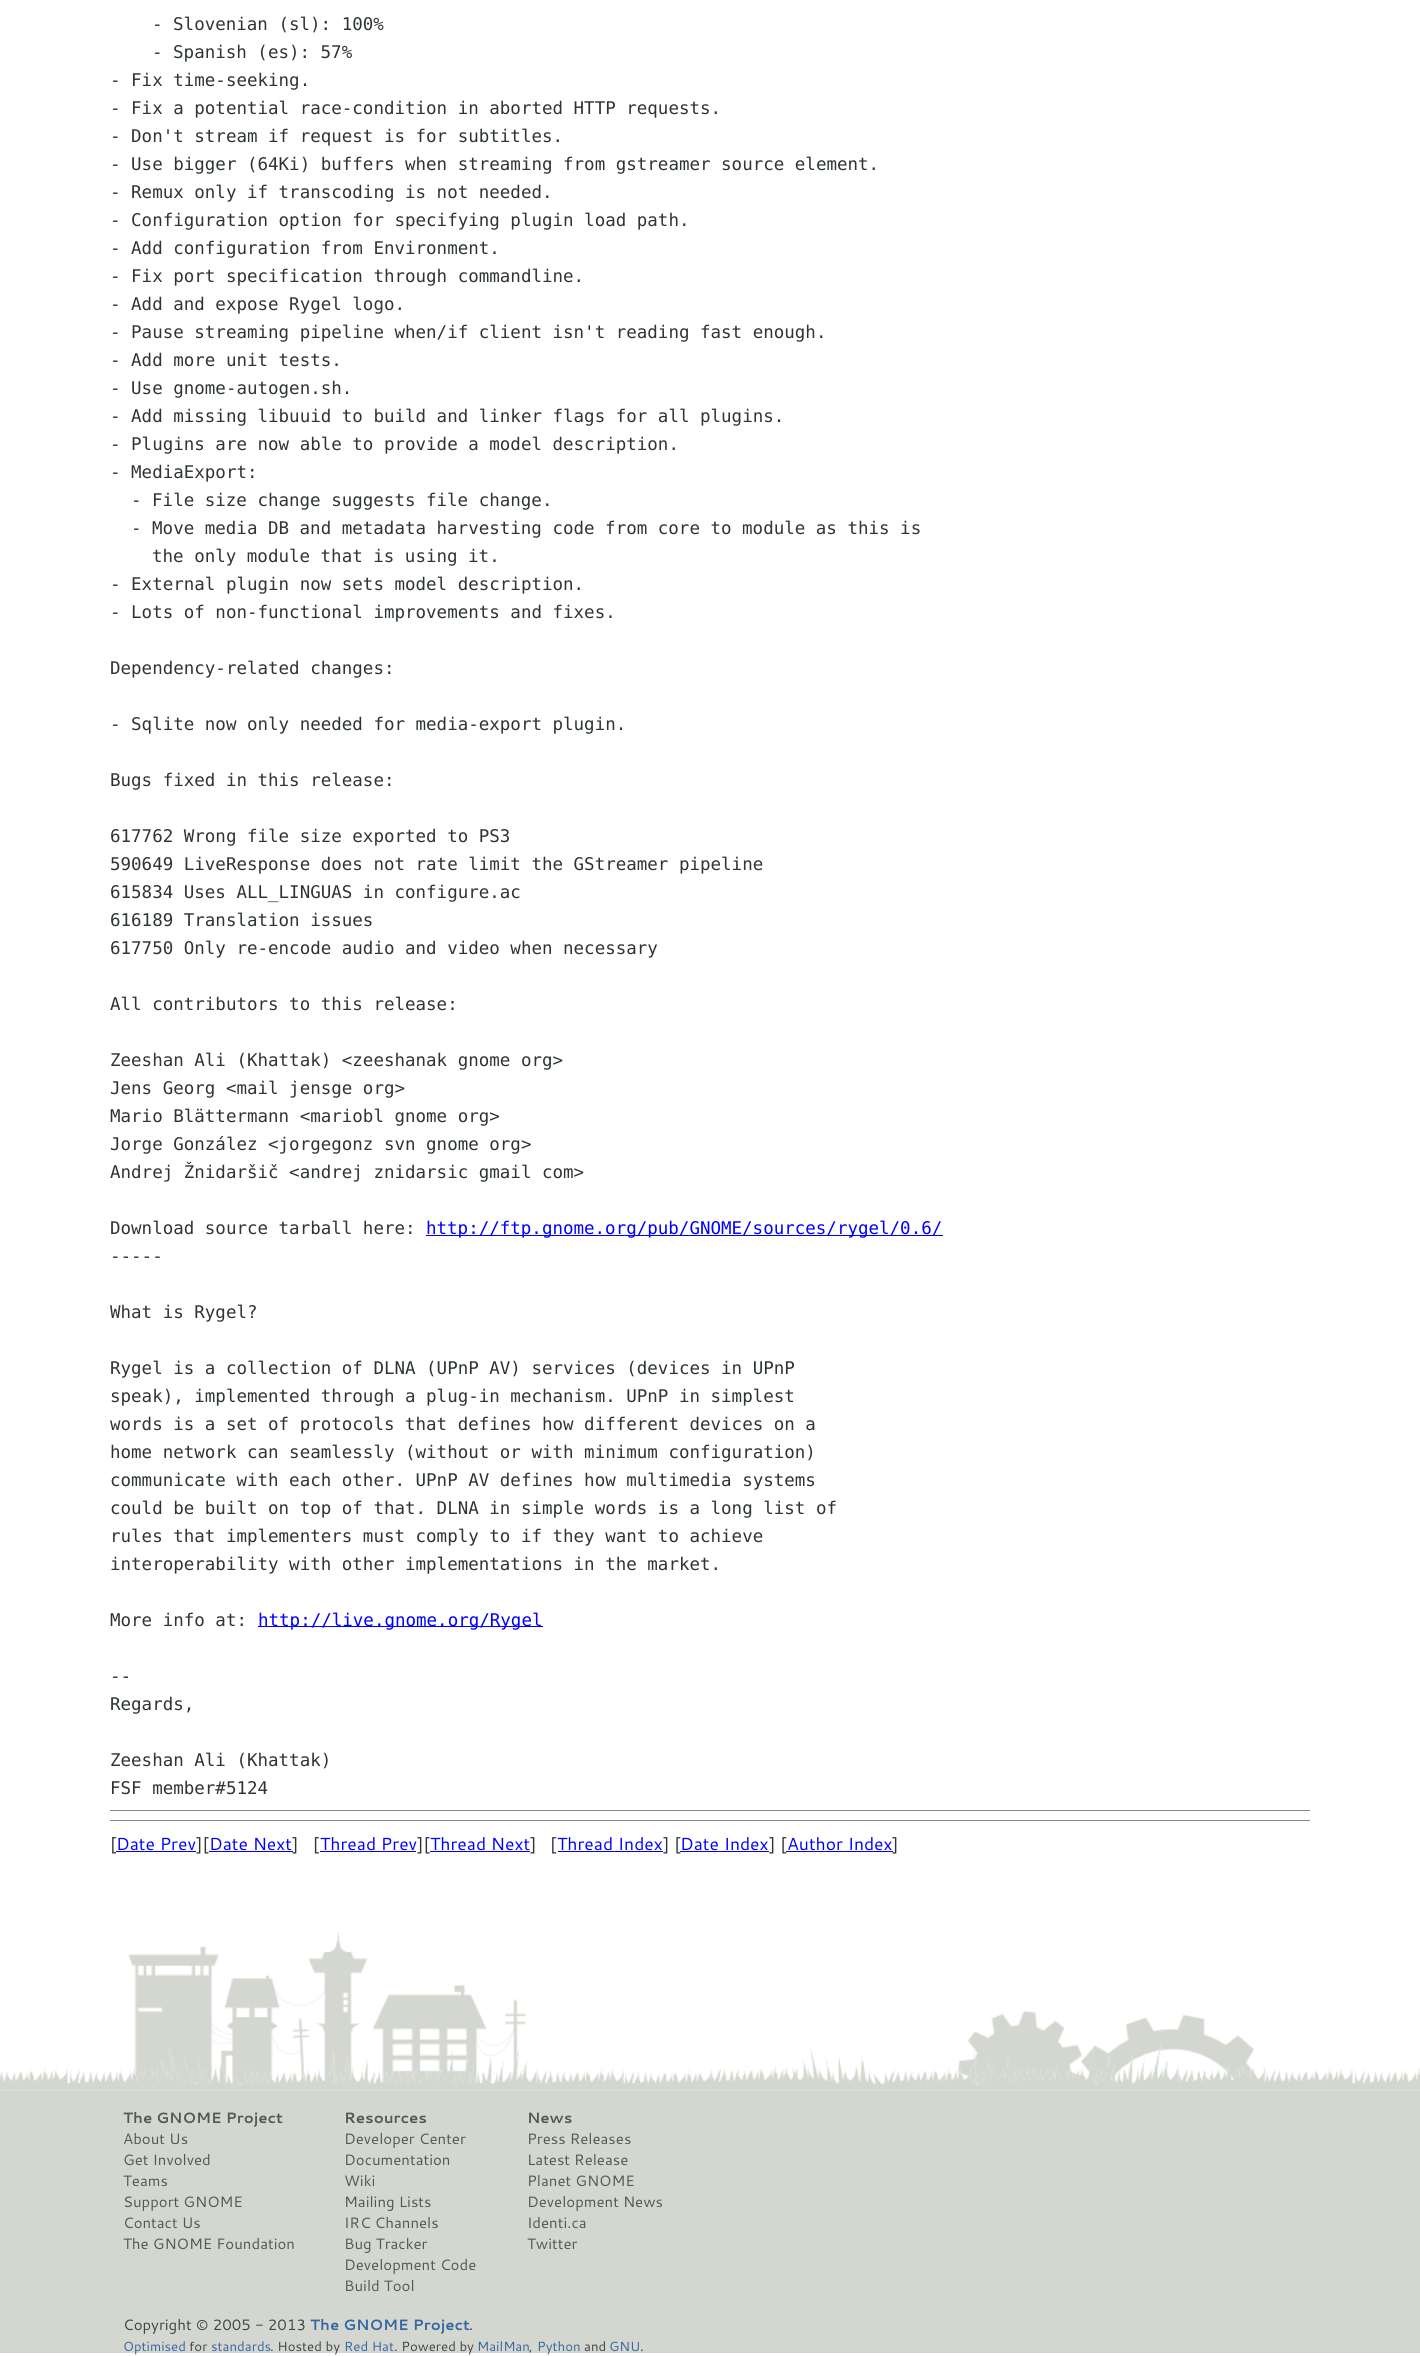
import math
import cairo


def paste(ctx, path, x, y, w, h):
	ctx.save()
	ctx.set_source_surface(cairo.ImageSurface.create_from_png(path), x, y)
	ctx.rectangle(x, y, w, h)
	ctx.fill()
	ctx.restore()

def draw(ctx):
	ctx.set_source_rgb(1, 1, 1)
	ctx.paint()
	ctx.select_font_face('DejaVu Sans Mono')
	ctx.set_font_size(17.5)
	ctx.set_source_rgb(0.18, 0.204, 0.212)
	for x, y, s in [
		(152, 30, '- Slovenian (sl): 100%'),
		(152, 58, '- Spanish (es): 57%'),
		(110, 86, '- Fix time-seeking.'),
		(110, 114, '- Fix a potential race-condition in aborted HTTP requests.'),
		(110, 142, '- Don\'t stream if request is for subtitles.'),
		(110, 170, '- Use bigger (64Ki) buffers when streaming from gstreamer source element.'),
		(110, 198, '- Remux only if transcoding is not needed.'),
		(110, 226, '- Configuration option for specifying plugin load path.'),
		(110, 254, '- Add configuration from Environment.'),
		(110, 282, '- Fix port specification through commandline.'),
		(110, 310, '- Add and expose Rygel logo.'),
		(110, 338, '- Pause streaming pipeline when/if client isn\'t reading fast enough.'),
		(110, 366, '- Add more unit tests.'),
		(110, 394, '- Use gnome-autogen.sh.'),
		(110, 422, '- Add missing libuuid to build and linker flags for all plugins.'),
		(110, 450, '- Plugins are now able to provide a model description.'),
		(110, 478, '- MediaExport:'),
		(131, 506, '- File size change suggests file change.'),
		(131, 534, '- Move media DB and metadata harvesting code from core to module as this is'),
		(152, 562, 'the only module that is using it.'),
		(110, 590, '- External plugin now sets model description.'),
		(110, 618, '- Lots of non-functional improvements and fixes.'),
		(110, 674, 'Dependency-related changes:'),
		(110, 730, '- Sqlite now only needed for media-export plugin.'),
		(110, 786, 'Bugs fixed in this release:'),
		(110, 842, '617762 Wrong file size exported to PS3'),
		(110, 870, '590649 LiveResponse does not rate limit the GStreamer pipeline'),
		(110, 898, '615834 Uses ALL_LINGUAS in configure.ac'),
		(110, 926, '616189 Translation issues'),
		(110, 954, '617750 Only re-encode audio and video when necessary'),
		(110, 1010, 'All contributors to this release:'),
		(110, 1066, 'Zeeshan Ali (Khattak) <zeeshanak gnome org>'),
		(110, 1094, 'Jens Georg <mail jensge org>'),
		(110, 1122, 'Mario Blättermann <mariobl gnome org>'),
		(110, 1150, 'Jorge González <jorgegonz svn gnome org>'),
		(110, 1178, 'Andrej Žnidaršič <andrej znidarsic gmail com>'),
		(110, 1234, 'Download source tarball here:'),
	]:
		ctx.move_to(x, y)
		ctx.show_text(s)
	ctx.set_source_rgb(0, 0, 1)
	ctx.rectangle(426, 1235, 517, 1)
	ctx.fill()
	ctx.move_to(426, 1234)
	ctx.show_text('http://ftp.gnome.org/pub/GNOME/sources/rygel/0.6/')
	ctx.set_source_rgb(0.18, 0.204, 0.212)
	for x, y, s in [
		(110, 1262, '-----'),
		(110, 1318, 'What is Rygel?'),
		(110, 1374, 'Rygel is a collection of DLNA (UPnP AV) services (devices in UPnP'),
		(110, 1402, 'speak), implemented through a plug-in mechanism. UPnP in simplest'),
		(110, 1430, 'words is a set of protocols that defines how different devices on a'),
		(110, 1458, 'home network can seamlessly (without or with minimum configuration)'),
		(110, 1486, 'communicate with each other. UPnP AV defines how multimedia systems'),
		(110, 1514, 'could be built on top of that. DLNA in simple words is a long list of'),
		(110, 1542, 'rules that implementers must comply to if they want to achieve'),
		(110, 1570, 'interoperability with other implementations in the market.'),
		(110, 1626, 'More info at:'),
	]:
		ctx.move_to(x, y)
		ctx.show_text(s)
	ctx.set_source_rgb(0, 0, 1)
	ctx.rectangle(258, 1626, 285, 1)
	ctx.fill()
	ctx.move_to(258, 1626)
	ctx.show_text('http://live.gnome.org/Rygel')
	ctx.set_source_rgb(0.18, 0.204, 0.212)
	for x, y, s in [
		(110, 1682, '--'),
		(110, 1710, 'Regards,'),
		(110, 1766, 'Zeeshan Ali (Khattak)'),
		(110, 1794, 'FSF member#5124'),
	]:
		ctx.move_to(x, y)
		ctx.show_text(s)
	ctx.set_source_rgb(0.533, 0.533, 0.533)
	ctx.rectangle(110, 1810, 1200, 1)
	ctx.fill()
	ctx.rectangle(110, 1820, 1200, 1)
	ctx.fill()
	ctx.select_font_face('Cantarell')
	ctx.set_source_rgb(0.18, 0.204, 0.212)
	ctx.move_to(110, 1850)
	ctx.show_text('[')
	ctx.set_source_rgb(0, 0, 1)
	ctx.move_to(116, 1850)
	ctx.show_text('Date Prev')
	ctx.rectangle(116, 1851, 80, 1)
	ctx.fill()
	ctx.set_source_rgb(0.18, 0.204, 0.212)
	ctx.move_to(196, 1850)
	ctx.show_text('][')
	ctx.set_source_rgb(0, 0, 1)
	ctx.move_to(209, 1850)
	ctx.show_text('Date Next')
	ctx.rectangle(209, 1851, 84, 1)
	ctx.fill()
	ctx.set_source_rgb(0.18, 0.204, 0.212)
	ctx.move_to(292, 1850)
	ctx.show_text(']   [')
	ctx.set_source_rgb(0, 0, 1)
	ctx.move_to(320, 1850)
	ctx.show_text('Thread Prev')
	ctx.rectangle(320, 1851, 96, 1)
	ctx.fill()
	ctx.set_source_rgb(0.18, 0.204, 0.212)
	ctx.move_to(417, 1850)
	ctx.show_text('][')
	ctx.set_source_rgb(0, 0, 1)
	ctx.move_to(430, 1850)
	ctx.show_text('Thread Next')
	ctx.rectangle(430, 1851, 100, 1)
	ctx.fill()
	ctx.set_source_rgb(0.18, 0.204, 0.212)
	ctx.move_to(530, 1850)
	ctx.show_text(']')
	ctx.move_to(550, 1850)
	ctx.show_text('[')
	ctx.set_source_rgb(0, 0, 1)
	ctx.move_to(557, 1850)
	ctx.show_text('Thread Index')
	ctx.rectangle(558, 1851, 105, 1)
	ctx.fill()
	ctx.set_source_rgb(0.18, 0.204, 0.212)
	ctx.move_to(663, 1850)
	ctx.show_text('] [')
	ctx.set_source_rgb(0, 0, 1)
	ctx.move_to(680, 1850)
	ctx.show_text('Date Index')
	ctx.rectangle(680, 1851, 89, 1)
	ctx.fill()
	ctx.set_source_rgb(0.18, 0.204, 0.212)
	ctx.move_to(769, 1850)
	ctx.show_text('] [')
	ctx.set_source_rgb(0, 0, 1)
	ctx.move_to(787, 1850)
	ctx.show_text('Author Index')
	ctx.rectangle(786, 1851, 107, 1)
	ctx.fill()
	ctx.set_source_rgb(0.18, 0.204, 0.212)
	ctx.move_to(892, 1850)
	ctx.show_text(']')
	paste(ctx, 'media/1.png', 128, 1932, 1149, 152)
	paste(ctx, 'media/2.png', 0, 2044, 1420, 47)
	ctx.set_source_rgb(0.827, 0.843, 0.812)
	ctx.rectangle(0, 2091, 1420, 262)
	ctx.fill()
	ctx.select_font_face('Cantarell', cairo.FONT_SLANT_NORMAL, cairo.FONT_WEIGHT_BOLD)
	ctx.set_font_size(15)
	ctx.set_source_rgb(0.333, 0.341, 0.325)
	ctx.move_to(123, 2123)
	ctx.show_text('The GNOME Project')
	ctx.select_font_face('Cantarell')
	for x, y, s in [
		(123, 2144, 'About Us'),
		(123, 2165, 'Get Involved'),
		(123, 2186, 'Teams'),
		(123, 2207, 'Support GNOME'),
		(123, 2228, 'Contact Us'),
		(123, 2249, 'The GNOME Foundation'),
	]:
		ctx.move_to(x, y)
		ctx.show_text(s)
	ctx.select_font_face('Cantarell', cairo.FONT_SLANT_NORMAL, cairo.FONT_WEIGHT_BOLD)
	ctx.move_to(344, 2123)
	ctx.show_text('Resources')
	ctx.select_font_face('Cantarell')
	for x, y, s in [
		(344, 2144, 'Developer Center'),
		(344, 2165, 'Documentation'),
		(344, 2186, 'Wiki'),
		(344, 2207, 'Mailing Lists'),
		(344, 2228, 'IRC Channels'),
		(344, 2249, 'Bug Tracker'),
		(344, 2270, 'Development Code'),
		(344, 2291, 'Build Tool'),
	]:
		ctx.move_to(x, y)
		ctx.show_text(s)
	ctx.select_font_face('Cantarell', cairo.FONT_SLANT_NORMAL, cairo.FONT_WEIGHT_BOLD)
	ctx.move_to(527, 2123)
	ctx.show_text('News')
	ctx.select_font_face('Cantarell')
	for x, y, s in [
		(527, 2144, 'Press Releases'),
		(527, 2165, 'Latest Release'),
		(527, 2186, 'Planet GNOME'),
		(527, 2207, 'Development News'),
		(527, 2228, 'Identi.ca'),
		(527, 2249, 'Twitter'),
	]:
		ctx.move_to(x, y)
		ctx.show_text(s)
	ctx.set_source_rgb(0.247, 0.267, 0.282)
	ctx.move_to(123, 2330)
	ctx.show_text('Copyright © 2005 - 2013')
	ctx.select_font_face('Cantarell', cairo.FONT_SLANT_NORMAL, cairo.FONT_WEIGHT_BOLD)
	ctx.set_source_rgb(0.204, 0.396, 0.643)
	ctx.move_to(310, 2330)
	ctx.show_text('The GNOME Project')
	ctx.select_font_face('Cantarell')
	ctx.set_source_rgb(0.247, 0.267, 0.282)
	ctx.move_to(469, 2330)
	ctx.show_text('.')
	ctx.set_font_size(13.25)
	ctx.set_source_rgb(0.204, 0.396, 0.643)
	ctx.move_to(123, 2351)
	ctx.show_text('Optimised')
	ctx.set_source_rgb(0.247, 0.267, 0.282)
	ctx.move_to(189, 2351)
	ctx.show_text('for')
	ctx.set_source_rgb(0.204, 0.396, 0.643)
	ctx.move_to(211, 2351)
	ctx.show_text('standards')
	ctx.set_source_rgb(0.247, 0.267, 0.282)
	ctx.move_to(270, 2351)
	ctx.show_text('. Hosted by')
	ctx.set_source_rgb(0.204, 0.396, 0.643)
	ctx.move_to(344, 2351)
	ctx.show_text('Red Hat')
	ctx.set_source_rgb(0.247, 0.267, 0.282)
	ctx.move_to(394, 2351)
	ctx.show_text('. Powered by')
	ctx.set_source_rgb(0.204, 0.396, 0.643)
	ctx.move_to(477, 2351)
	ctx.show_text('MailMan')
	ctx.set_source_rgb(0.247, 0.267, 0.282)
	ctx.move_to(529, 2351)
	ctx.show_text(',')
	ctx.set_source_rgb(0.204, 0.396, 0.643)
	ctx.move_to(537, 2351)
	ctx.show_text('Python')
	ctx.set_source_rgb(0.247, 0.267, 0.282)
	ctx.move_to(584, 2351)
	ctx.show_text('and')
	ctx.set_source_rgb(0.204, 0.396, 0.643)
	ctx.move_to(609, 2351)
	ctx.show_text('GNU')
	ctx.set_source_rgb(0.247, 0.267, 0.282)
	ctx.move_to(640, 2351)
	ctx.show_text('.')


surface = cairo.ImageSurface(cairo.FORMAT_RGB24, 1420, 2356)
ctx = cairo.Context(surface)
options = cairo.FontOptions()
options.set_hint_metrics(cairo.HINT_METRICS_OFF)
options.set_hint_style(cairo.HINT_STYLE_NONE)
ctx.set_font_options(options)
ctx.set_miter_limit(4)
draw(ctx)
surface.write_to_png('image.png')
